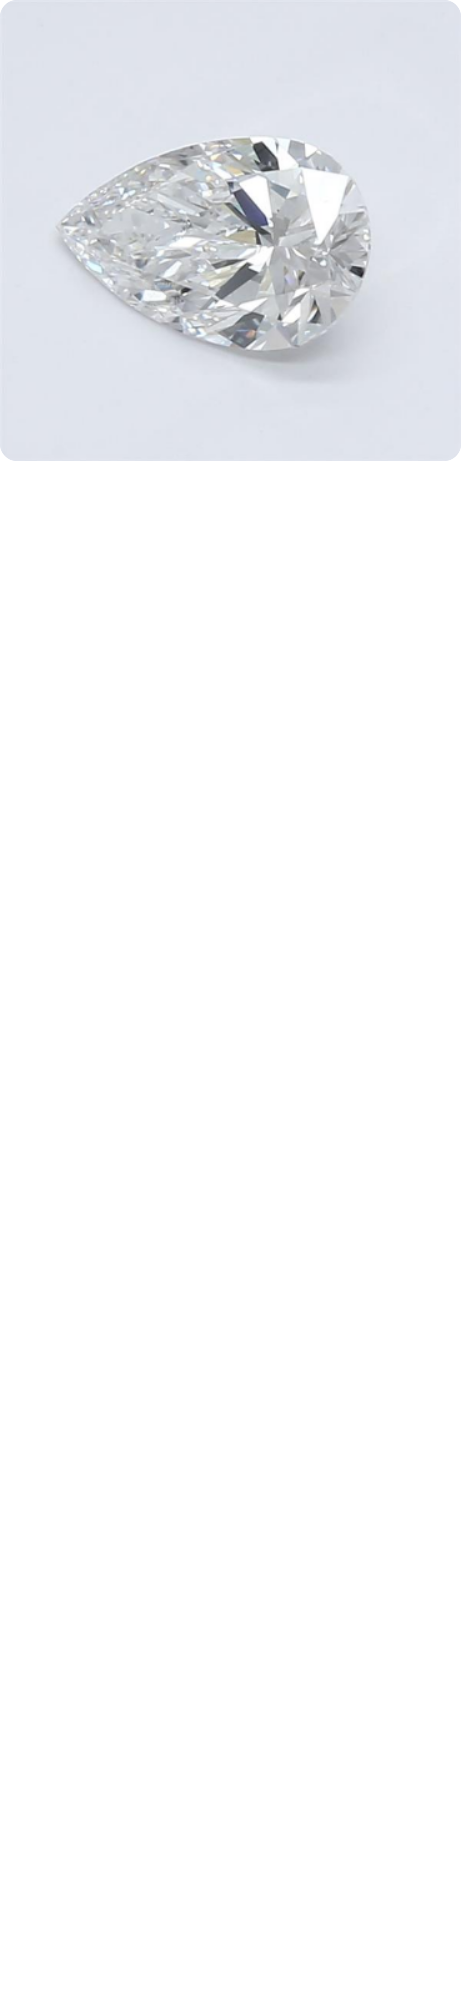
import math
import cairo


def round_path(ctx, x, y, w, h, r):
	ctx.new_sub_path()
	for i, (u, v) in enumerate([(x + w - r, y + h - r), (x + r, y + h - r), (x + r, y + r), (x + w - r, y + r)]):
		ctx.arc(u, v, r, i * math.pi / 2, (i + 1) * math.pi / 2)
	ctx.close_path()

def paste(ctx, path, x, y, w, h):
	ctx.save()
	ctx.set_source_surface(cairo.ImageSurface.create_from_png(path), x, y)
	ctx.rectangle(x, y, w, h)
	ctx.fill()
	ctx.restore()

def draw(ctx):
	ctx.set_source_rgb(1, 1, 1)
	ctx.paint()
	ctx.set_source_rgb(0.871, 0.886, 0.922)
	round_path(ctx, 0, 0, 461, 461, 17)
	ctx.fill()
	paste(ctx, 'media/1.png', 0, 0, 461, 461)
	paste(ctx, 'media/2.png', 7, 3, 454, 457)


surface = cairo.ImageSurface(cairo.FORMAT_RGB24, 461, 2008)
ctx = cairo.Context(surface)
options = cairo.FontOptions()
options.set_hint_metrics(cairo.HINT_METRICS_OFF)
options.set_hint_style(cairo.HINT_STYLE_NONE)
ctx.set_font_options(options)
ctx.set_miter_limit(4)
draw(ctx)
surface.write_to_png('image.png')
